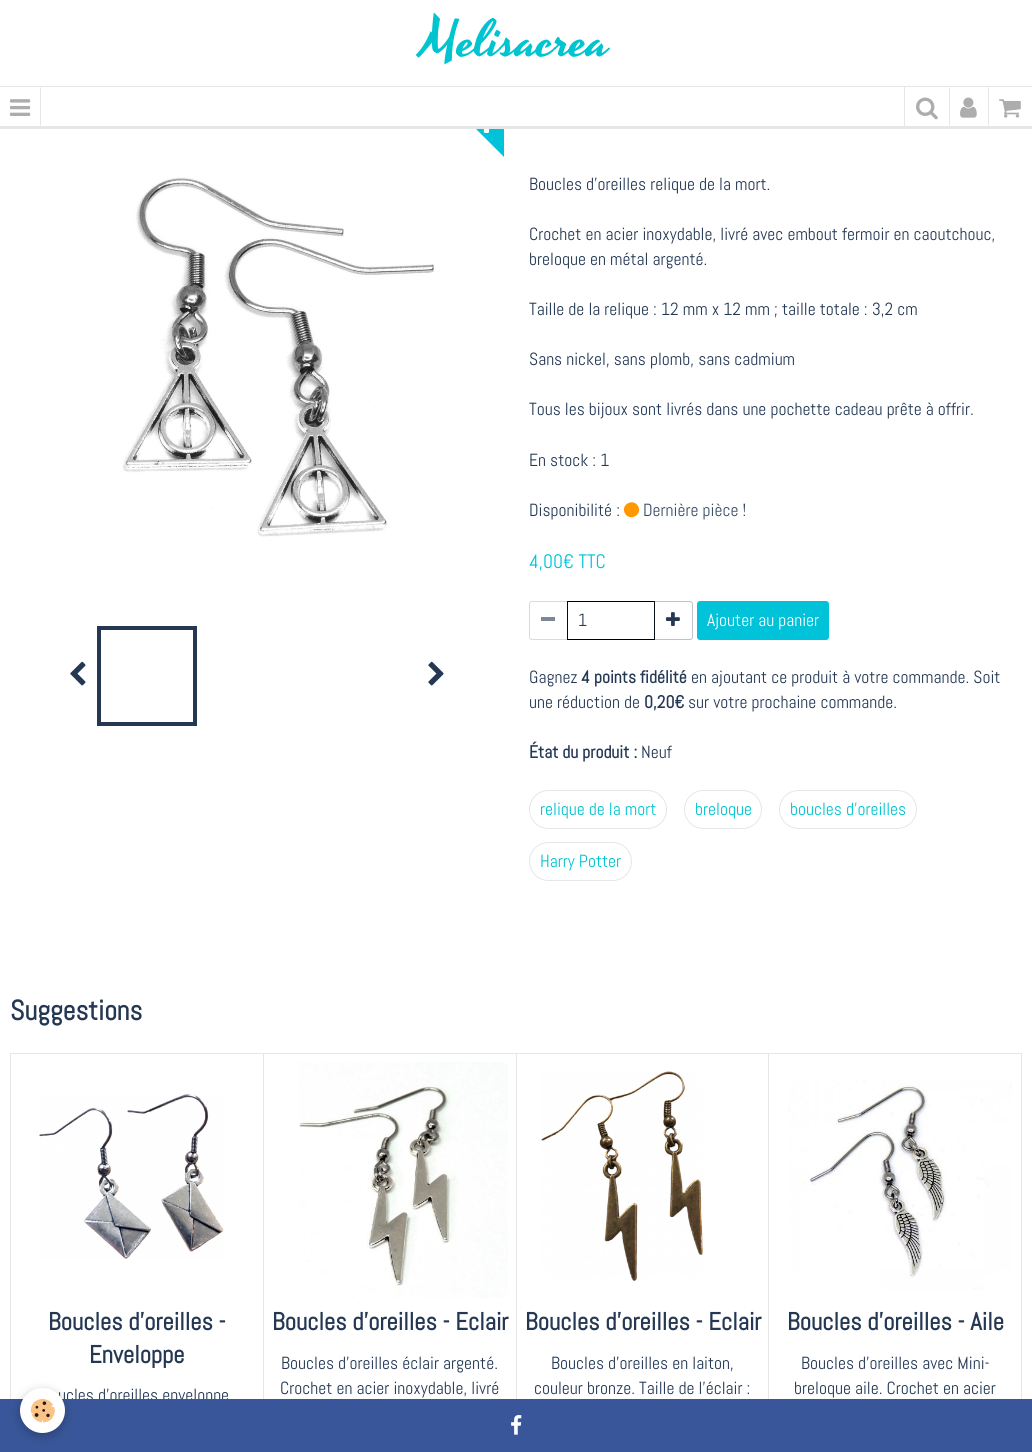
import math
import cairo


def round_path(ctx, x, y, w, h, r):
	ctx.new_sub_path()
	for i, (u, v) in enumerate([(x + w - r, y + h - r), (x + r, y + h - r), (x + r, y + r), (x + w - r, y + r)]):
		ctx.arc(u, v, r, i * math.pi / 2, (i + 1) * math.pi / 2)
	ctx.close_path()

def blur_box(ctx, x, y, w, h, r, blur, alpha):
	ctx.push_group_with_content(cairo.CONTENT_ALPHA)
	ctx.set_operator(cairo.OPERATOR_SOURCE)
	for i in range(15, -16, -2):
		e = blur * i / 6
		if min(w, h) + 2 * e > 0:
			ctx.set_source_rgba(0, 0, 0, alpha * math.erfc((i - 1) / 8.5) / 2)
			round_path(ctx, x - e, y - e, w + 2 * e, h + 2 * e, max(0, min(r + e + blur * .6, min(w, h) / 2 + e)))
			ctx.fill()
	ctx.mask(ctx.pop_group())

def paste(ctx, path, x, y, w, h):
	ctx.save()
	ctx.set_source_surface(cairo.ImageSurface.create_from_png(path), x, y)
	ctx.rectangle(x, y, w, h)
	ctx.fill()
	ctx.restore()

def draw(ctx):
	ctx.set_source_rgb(1, 1, 1)
	ctx.paint()
	ctx.set_source_rgb(0, 0.765, 0.851)
	ctx.new_path()
	ctx.move_to(504, 107)
	ctx.line_to(504, 157)
	ctx.line_to(454, 107)
	ctx.close_path()
	ctx.fill()
	ctx.set_source_rgb(1, 1, 1)
	ctx.rectangle(454, 107, 50, 19)
	ctx.fill()
	ctx.set_source_rgb(0.902, 0.902, 0.902)
	ctx.rectangle(0, 126, 1032, 3)
	ctx.fill()
	ctx.select_font_face('Yesteryear')
	ctx.set_font_size(52.5)
	ctx.set_source_rgb(0, 0.769, 0.812)
	ctx.move_to(422, 55)
	ctx.show_text('Melisacrea')
	ctx.set_source_rgb(0.902, 0.902, 0.902)
	ctx.rectangle(0, 86, 1032, 1)
	ctx.fill()
	ctx.new_path()
	ctx.move_to(41, 87)
	ctx.line_to(41, 126)
	ctx.line_to(40, 125)
	ctx.line_to(40, 88)
	ctx.close_path()
	ctx.fill()
	paste(ctx, 'media/1.png', 10, 99, 21, 17)
	ctx.rectangle(904, 87, 1, 39)
	ctx.fill()
	paste(ctx, 'media/2.png', 916, 97, 22, 23)
	ctx.new_path()
	ctx.move_to(949, 126)
	ctx.line_to(949, 87)
	ctx.line_to(950, 88)
	ctx.line_to(950, 125)
	ctx.close_path()
	ctx.fill()
	paste(ctx, 'media/3.png', 960, 97, 17, 21)
	ctx.new_path()
	ctx.move_to(988, 126)
	ctx.line_to(988, 87)
	ctx.line_to(989, 88)
	ctx.line_to(989, 125)
	ctx.close_path()
	ctx.fill()
	paste(ctx, 'media/4.png', 999, 99, 22, 19)
	paste(ctx, 'media/5.png', 483, 129, 6, 4)
	paste(ctx, 'media/6.png', 122, 177, 313, 360)
	paste(ctx, 'media/7.png', 70, 661, 16, 25)
	ctx.rectangle(99, 628, 96, 96)
	ctx.set_source_rgb(0.141, 0.22, 0.329)
	ctx.set_line_width(4)
	ctx.stroke()
	paste(ctx, 'media/8.png', 428, 661, 16, 25)
	ctx.select_font_face('Abel')
	ctx.set_font_size(17.6)
	for x, y, s in [
		(529, 190, 'Boucles d\'oreilles relique de la mort.'),
		(529, 240, 'Crochet en acier inoxydable, livré avec embout fermoir en caoutchouc,'),
		(529, 265, 'breloque en métal argenté.'),
		(529, 315, 'Taille de la relique : 12 mm x 12 mm ; taille totale : 3,2 cm'),
		(529, 365, 'Sans nickel, sans plomb, sans cadmium'),
		(529, 415, 'Tous les bijoux sont livrés dans une pochette cadeau prête à offrir.'),
		(529, 466, 'En stock : 1'),
		(529, 516, 'Disponibilité :'),
	]:
		ctx.move_to(x, y)
		ctx.show_text(s)
	ctx.set_source_rgb(1, 0.596, 0)
	ctx.new_path()
	ctx.move_to(638, 506)
	ctx.curve_to(643, 514.5, 630, 522, 625, 513.5)
	ctx.curve_to(620, 505, 633, 497.5, 638, 506)
	ctx.close_path()
	ctx.fill()
	ctx.set_source_rgb(0.227, 0.298, 0.396)
	ctx.move_to(643, 516)
	ctx.show_text('Dernière pièce !')
	ctx.set_font_size(19.5)
	ctx.set_source_rgb(0, 0.765, 0.851)
	ctx.move_to(529, 568)
	ctx.show_text('4,00€ TTC')
	ctx.set_source_rgb(0.486, 0.533, 0.596)
	ctx.rectangle(541, 617, 14, 4)
	ctx.fill()
	ctx.rectangle(567.5, 601.5, 87, 38)
	ctx.set_source_rgb(0, 0, 0)
	ctx.set_line_width(1)
	ctx.stroke()
	ctx.new_path()
	ctx.move_to(532, 601.5)
	ctx.line_to(567.5, 601.5)
	ctx.line_to(567.5, 639.5)
	ctx.line_to(532, 639.5)
	ctx.curve_to(530.5, 639.5, 529.5, 638.5, 529.5, 637)
	ctx.line_to(529.5, 604)
	ctx.curve_to(529.5, 602.5, 530.5, 601.5, 532, 601.5)
	ctx.close_path()
	ctx.set_source_rgba(0.141, 0.22, 0.329, 0.18)
	ctx.stroke()
	ctx.set_font_size(17.6)
	ctx.set_source_rgb(0.141, 0.22, 0.329)
	ctx.move_to(578, 626)
	ctx.show_text('1')
	paste(ctx, 'media/9.png', 666, 612, 14, 14)
	ctx.new_path()
	ctx.move_to(654.5, 601.5)
	ctx.line_to(690, 601.5)
	ctx.curve_to(691.5, 601.5, 692.5, 602.5, 692.5, 604)
	ctx.line_to(692.5, 637)
	ctx.curve_to(692.5, 638.5, 691.5, 639.5, 690, 639.5)
	ctx.line_to(654.5, 639.5)
	ctx.close_path()
	ctx.set_source_rgba(0.141, 0.22, 0.329, 0.3)
	ctx.stroke()
	ctx.set_source_rgb(0, 0.765, 0.851)
	round_path(ctx, 697, 601, 132, 39, 3)
	ctx.fill()
	ctx.set_source_rgb(1, 1, 1)
	ctx.move_to(707, 626)
	ctx.show_text('Ajouter au panier')
	ctx.set_source_rgb(0.141, 0.22, 0.329)
	ctx.move_to(529, 683)
	ctx.show_text('Gagnez')
	ctx.select_font_face('Abel', cairo.FONT_SLANT_NORMAL, cairo.FONT_WEIGHT_BOLD)
	ctx.move_to(581, 683)
	ctx.show_text('4 points fidélité')
	ctx.select_font_face('Abel')
	ctx.move_to(691, 683)
	ctx.show_text('en ajoutant ce produit à votre commande. Soit')
	ctx.move_to(529, 708)
	ctx.show_text('une réduction de')
	ctx.select_font_face('Abel', cairo.FONT_SLANT_NORMAL, cairo.FONT_WEIGHT_BOLD)
	ctx.move_to(644, 708)
	ctx.show_text('0,20€')
	ctx.select_font_face('Abel')
	ctx.move_to(688, 708)
	ctx.show_text('sur votre prochaine commande.')
	ctx.select_font_face('Abel', cairo.FONT_SLANT_NORMAL, cairo.FONT_WEIGHT_BOLD)
	ctx.move_to(529, 758)
	ctx.show_text('État du produit :')
	ctx.select_font_face('Abel')
	ctx.move_to(641, 758)
	ctx.show_text('Neuf')
	round_path(ctx, 529.5, 790.5, 137, 38, 19)
	ctx.set_source_rgb(0.902, 0.902, 0.902)
	ctx.stroke()
	ctx.set_source_rgb(0, 0.769, 0.812)
	ctx.move_to(540, 815)
	ctx.show_text('relique de la mort')
	round_path(ctx, 684.5, 790.5, 77, 38, 19)
	ctx.set_source_rgb(0.902, 0.902, 0.902)
	ctx.stroke()
	ctx.set_source_rgb(0, 0.769, 0.812)
	ctx.move_to(695, 815)
	ctx.show_text('breloque')
	round_path(ctx, 779.5, 790.5, 137, 38, 19)
	ctx.set_source_rgb(0.902, 0.902, 0.902)
	ctx.stroke()
	ctx.set_source_rgb(0, 0.769, 0.812)
	ctx.move_to(790, 815)
	ctx.show_text('boucles d\'oreilles')
	round_path(ctx, 529.5, 842.5, 102, 38, 19)
	ctx.set_source_rgb(0.902, 0.902, 0.902)
	ctx.stroke()
	ctx.set_source_rgb(0, 0.769, 0.812)
	ctx.move_to(540, 867)
	ctx.show_text('Harry Potter')
	ctx.select_font_face('Abel', cairo.FONT_SLANT_NORMAL, cairo.FONT_WEIGHT_BOLD)
	ctx.set_font_size(28)
	ctx.set_source_rgb(0.141, 0.22, 0.329)
	ctx.move_to(10, 1020)
	ctx.show_text('Suggestions')
	ctx.set_source_rgb(0.902, 0.902, 0.902)
	ctx.rectangle(10, 1053, 1, 346)
	ctx.rectangle(11, 1053, 1011, 1)
	ctx.rectangle(263, 1053, 1, 346)
	ctx.fill()
	paste(ctx, 'media/10.png', 39, 1094, 185, 165)
	ctx.set_font_size(24.75)
	ctx.set_source_rgb(0.141, 0.22, 0.329)
	ctx.move_to(48, 1330)
	ctx.show_text('Boucles d\'oreilles -')
	ctx.move_to(89, 1363)
	ctx.show_text('Enveloppe')
	ctx.select_font_face('Abel')
	ctx.set_font_size(17.6)
	ctx.move_to(58, 1401)
	ctx.show_text('ucles d\'oreilles enveloppe')
	ctx.set_source_rgb(0.902, 0.902, 0.902)
	ctx.rectangle(516, 1053, 1, 346)
	ctx.fill()
	paste(ctx, 'media/11.png', 299, 1062, 209, 236)
	ctx.select_font_face('Abel', cairo.FONT_SLANT_NORMAL, cairo.FONT_WEIGHT_BOLD)
	ctx.set_font_size(24.75)
	ctx.set_source_rgb(0.141, 0.22, 0.329)
	ctx.move_to(272, 1330)
	ctx.show_text('Boucles d\'oreilles - Eclair')
	ctx.select_font_face('Abel')
	ctx.set_font_size(17.6)
	ctx.move_to(281, 1369)
	ctx.show_text('Boucles d\'oreilles éclair argenté.')
	ctx.move_to(280, 1394)
	ctx.show_text('Crochet en acier inoxydable, livré')
	ctx.set_source_rgb(0.902, 0.902, 0.902)
	ctx.rectangle(768, 1053, 1, 346)
	ctx.fill()
	paste(ctx, 'media/12.png', 541, 1071, 162, 210)
	ctx.select_font_face('Abel', cairo.FONT_SLANT_NORMAL, cairo.FONT_WEIGHT_BOLD)
	ctx.set_font_size(24.75)
	ctx.set_source_rgb(0.141, 0.22, 0.329)
	ctx.move_to(525, 1330)
	ctx.show_text('Boucles d\'oreilles - Eclair')
	ctx.select_font_face('Abel')
	ctx.set_font_size(17.6)
	ctx.move_to(551, 1369)
	ctx.show_text('Boucles d\'oreilles en laiton,')
	ctx.move_to(534, 1394)
	ctx.show_text('couleur bronze. Taille de l\'éclair :')
	ctx.set_source_rgb(0.902, 0.902, 0.902)
	ctx.rectangle(1021, 1053, 1, 346)
	ctx.fill()
	paste(ctx, 'media/13.png', 788, 1080, 224, 210)
	ctx.select_font_face('Abel', cairo.FONT_SLANT_NORMAL, cairo.FONT_WEIGHT_BOLD)
	ctx.set_font_size(24.75)
	ctx.set_source_rgb(0.141, 0.22, 0.329)
	ctx.move_to(787, 1330)
	ctx.show_text('Boucles d\'oreilles - Aile')
	ctx.select_font_face('Abel')
	ctx.set_font_size(17.6)
	ctx.move_to(801, 1369)
	ctx.show_text('Boucles d\'oreilles avec Mini-')
	ctx.move_to(794, 1394)
	ctx.show_text('breloque aile. Crochet en acier')
	ctx.set_source_rgb(0.22, 0.337, 0.6)
	ctx.rectangle(0, 1399, 1032, 53)
	ctx.fill()
	ctx.set_source_rgb(0, 0, 0)
	blur_box(ctx, 20, 1391, 45, 45, 22.5, 5, 0.24)
	ctx.set_source_rgb(1, 1, 1)
	ctx.arc(42.5, 1410.5, 22.5, 0, 2 * math.pi)
	ctx.fill()
	paste(ctx, 'media/14.png', 30, 1398, 25, 25)
	paste(ctx, 'media/15.png', 511, 1415, 11, 20)


surface = cairo.ImageSurface(cairo.FORMAT_RGB24, 1032, 1452)
ctx = cairo.Context(surface)
options = cairo.FontOptions()
options.set_hint_metrics(cairo.HINT_METRICS_OFF)
options.set_hint_style(cairo.HINT_STYLE_NONE)
ctx.set_font_options(options)
ctx.set_miter_limit(4)
draw(ctx)
surface.write_to_png('image.png')
